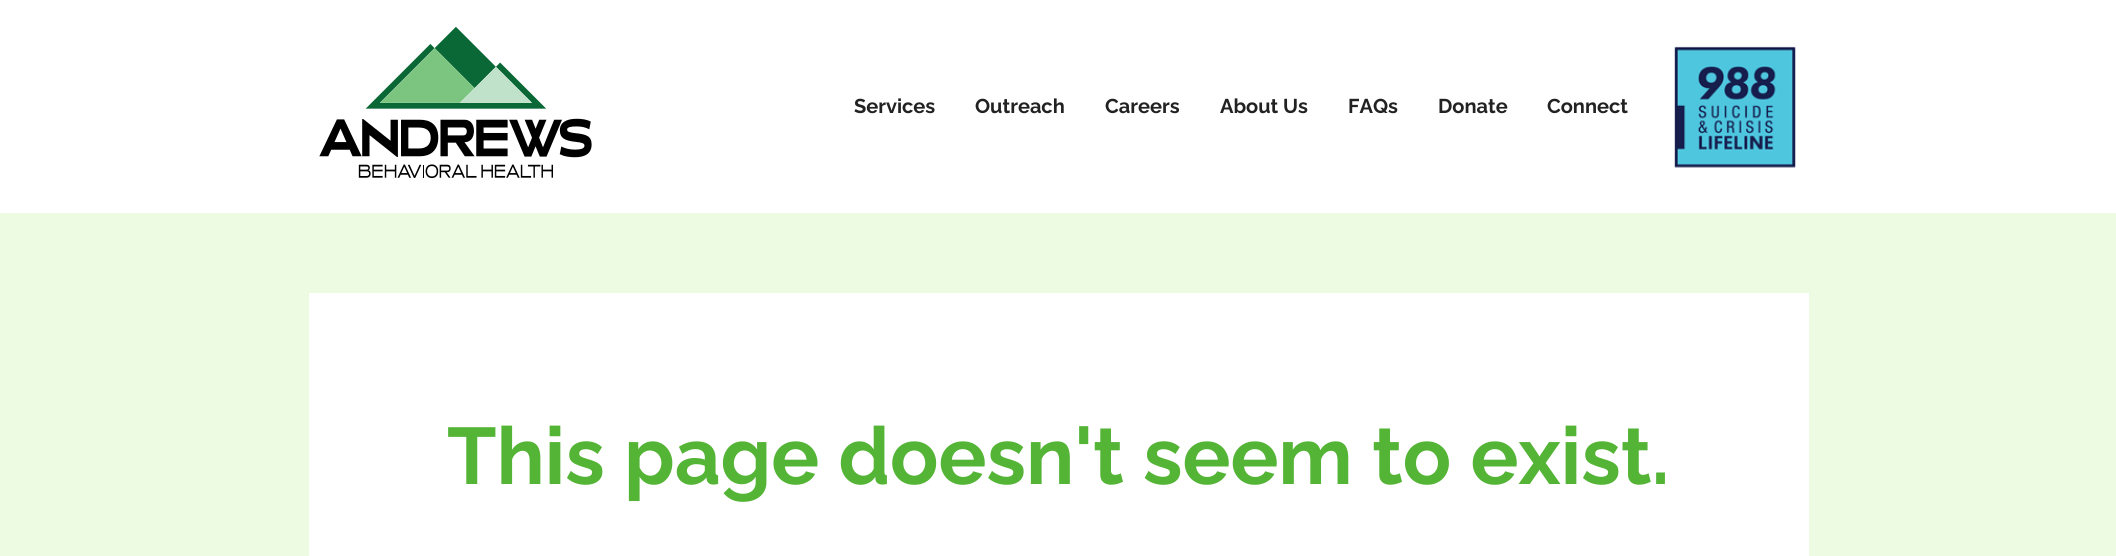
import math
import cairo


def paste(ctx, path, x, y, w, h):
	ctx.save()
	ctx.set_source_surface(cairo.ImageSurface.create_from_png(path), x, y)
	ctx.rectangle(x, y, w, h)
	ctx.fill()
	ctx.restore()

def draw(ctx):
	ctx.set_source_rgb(0.929, 0.984, 0.886)
	ctx.paint()
	ctx.set_source_rgb(1, 1, 1)
	ctx.rectangle(0, 0, 2116, 213)
	ctx.fill()
	paste(ctx, 'media/1.png', 319, 26, 273, 153)
	ctx.select_font_face('Raleway Thin')
	ctx.set_font_size(20)
	ctx.set_source_rgb(0.133, 0.133, 0.133)
	for x, y, s in [
		(854, 113, 'Services'),
		(975, 113, 'Outreach'),
		(1105, 113, 'Careers'),
		(1220, 113, 'About Us'),
		(1348, 113, 'FAQs'),
		(1438, 113, 'Donate'),
		(1547, 113, 'Connect'),
	]:
		ctx.move_to(x, y)
		ctx.show_text(s)
	paste(ctx, 'media/2.png', 1674, 46, 122, 122)
	ctx.set_source_rgb(1, 1, 1)
	ctx.rectangle(309, 293, 1500, 263)
	ctx.fill()
	ctx.set_font_size(80)
	ctx.set_source_rgb(0.329, 0.706, 0.208)
	ctx.move_to(447, 484)
	ctx.show_text('This page doesn\'t seem to exist.')


surface = cairo.ImageSurface(cairo.FORMAT_RGB24, 2116, 556)
ctx = cairo.Context(surface)
options = cairo.FontOptions()
options.set_hint_metrics(cairo.HINT_METRICS_OFF)
options.set_hint_style(cairo.HINT_STYLE_NONE)
ctx.set_font_options(options)
ctx.set_miter_limit(4)
draw(ctx)
surface.write_to_png('image.png')
